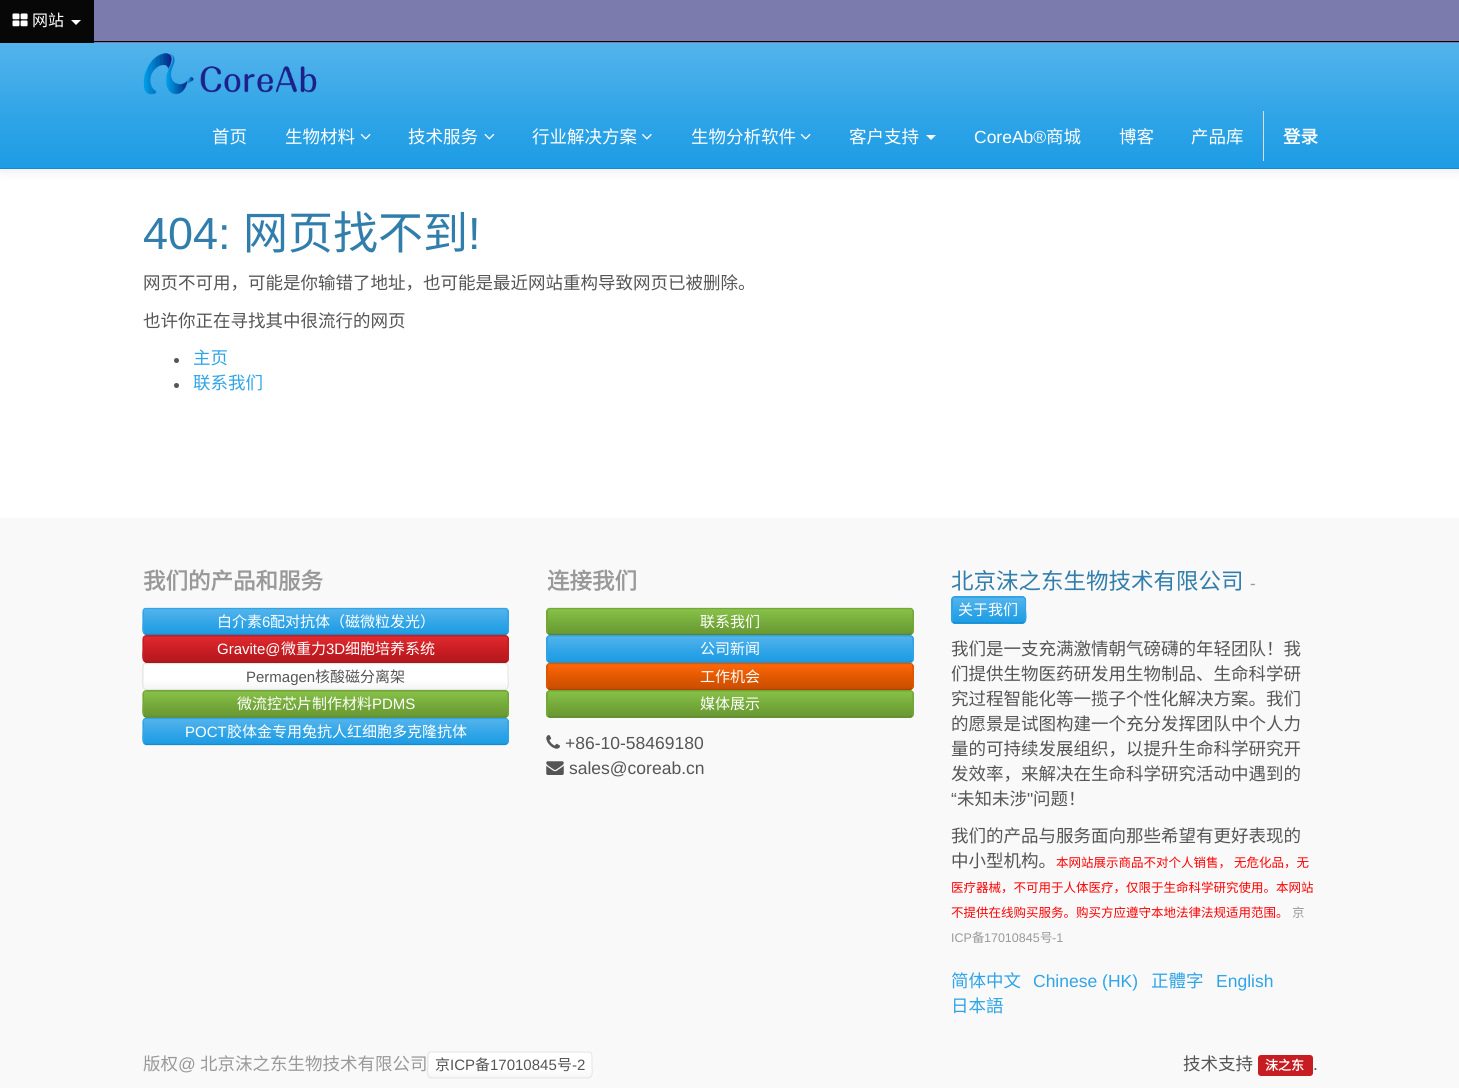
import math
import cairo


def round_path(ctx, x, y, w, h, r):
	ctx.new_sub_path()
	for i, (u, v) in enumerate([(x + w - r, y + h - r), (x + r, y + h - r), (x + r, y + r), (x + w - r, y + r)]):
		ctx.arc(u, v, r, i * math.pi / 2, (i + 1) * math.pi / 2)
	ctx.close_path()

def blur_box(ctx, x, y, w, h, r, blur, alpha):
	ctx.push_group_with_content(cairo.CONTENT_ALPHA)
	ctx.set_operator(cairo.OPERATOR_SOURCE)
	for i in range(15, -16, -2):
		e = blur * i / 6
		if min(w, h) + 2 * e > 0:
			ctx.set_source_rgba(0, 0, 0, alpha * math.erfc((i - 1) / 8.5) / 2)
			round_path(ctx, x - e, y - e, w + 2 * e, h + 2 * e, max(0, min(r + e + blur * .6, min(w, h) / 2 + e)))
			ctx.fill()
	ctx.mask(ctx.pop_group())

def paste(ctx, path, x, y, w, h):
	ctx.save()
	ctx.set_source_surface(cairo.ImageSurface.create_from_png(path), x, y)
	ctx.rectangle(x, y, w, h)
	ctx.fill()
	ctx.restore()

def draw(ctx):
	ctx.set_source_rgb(1, 1, 1)
	ctx.paint()
	ctx.set_source_rgb(0, 0, 0)
	blur_box(ctx, 0, 44, 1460, 126, 0, 6, 0.1)
	ctx.set_source_rgb(0.486, 0.482, 0.678)
	ctx.rectangle(94, 0, 1365, 43)
	ctx.fill()
	ctx.set_source_rgb(0.031, 0.031, 0.031)
	ctx.rectangle(94, 41, 1365, 1)
	ctx.rectangle(0, 0, 94, 43)
	ctx.fill()
	paste(ctx, 'media/1.png', 12, 13, 16, 14)
	ctx.select_font_face('Noto Sans CJK SC')
	ctx.set_font_size(16)
	ctx.set_source_rgb(1, 1, 1)
	ctx.move_to(32, 26)
	ctx.show_text('网站')
	ctx.new_path()
	ctx.move_to(71, 20)
	ctx.line_to(81, 20)
	ctx.line_to(76, 25)
	ctx.close_path()
	ctx.fill()
	gradient = cairo.LinearGradient(730, 42, 730, 168)
	gradient.add_color_stop_rgba(0, 0.329, 0.706, 0.922, 1)
	gradient.add_color_stop_rgba(0.6, 0.184, 0.643, 0.906, 1)
	gradient.add_color_stop_rgba(1, 0.114, 0.612, 0.898, 1)
	ctx.set_source(gradient)
	ctx.rectangle(0, 43, 1459, 125)
	ctx.fill()
	ctx.set_source_rgb(0.09, 0.541, 0.8)
	ctx.rectangle(0, 168, 1459, 1)
	ctx.fill()
	paste(ctx, 'media/2.png', 143, 53, 174, 42)
	ctx.set_font_size(17.5)
	ctx.set_source_rgb(1, 1, 1)
	ctx.move_to(212, 143)
	ctx.show_text('首页')
	ctx.move_to(285, 143)
	ctx.show_text('生物材料')
	paste(ctx, 'media/3.png', 360, 133, 11, 7)
	ctx.move_to(408, 143)
	ctx.show_text('技术服务')
	paste(ctx, 'media/4.png', 484, 133, 11, 7)
	ctx.move_to(532, 143)
	ctx.show_text('行业解决方案')
	paste(ctx, 'media/5.png', 642, 133, 10, 7)
	ctx.move_to(691, 143)
	ctx.show_text('生物分析软件')
	paste(ctx, 'media/3.png', 800, 133, 11, 7)
	ctx.move_to(849, 143)
	ctx.show_text('客户支持')
	ctx.new_path()
	ctx.move_to(926, 135)
	ctx.line_to(936, 135)
	ctx.line_to(931, 140)
	ctx.close_path()
	ctx.fill()
	ctx.select_font_face('Liberation Sans')
	ctx.move_to(974, 143)
	ctx.show_text('CoreAb®')
	ctx.select_font_face('Noto Sans CJK SC')
	for x, y, s in [
		(1046, 143, '商城'),
		(1119, 143, '博客'),
		(1191, 143, '产品库'),
	]:
		ctx.move_to(x, y)
		ctx.show_text(s)
	ctx.set_source_rgb(0.867, 0.867, 0.867)
	ctx.rectangle(1263, 111, 1, 50)
	ctx.fill()
	ctx.select_font_face('Noto Sans CJK SC', cairo.FONT_SLANT_NORMAL, cairo.FONT_WEIGHT_BOLD)
	ctx.set_source_rgb(1, 1, 1)
	ctx.move_to(1283, 143)
	ctx.show_text('登录')
	ctx.select_font_face('Liberation Sans')
	ctx.set_font_size(45)
	ctx.set_source_rgb(0.192, 0.494, 0.675)
	ctx.move_to(143, 249)
	ctx.show_text('404:')
	ctx.select_font_face('Noto Sans CJK SC')
	ctx.move_to(243, 249)
	ctx.show_text('网页找不到')
	ctx.select_font_face('Liberation Sans')
	ctx.move_to(468, 249)
	ctx.show_text('!')
	ctx.select_font_face('Noto Sans CJK SC')
	ctx.set_font_size(17.5)
	ctx.set_source_rgb(0.333, 0.333, 0.333)
	ctx.move_to(143, 289)
	ctx.show_text('网页不可用，可能是你输错了地址，也可能是最近网站重构导致网页已被删除。')
	ctx.move_to(143, 327)
	ctx.show_text('也许你正在寻找其中很流行的网页')
	ctx.new_path()
	ctx.arc(176.5, 360.5, 2.5, 0, 2 * math.pi)
	ctx.fill()
	ctx.set_source_rgb(0.184, 0.643, 0.906)
	ctx.move_to(193, 364)
	ctx.show_text('主页')
	ctx.set_source_rgb(0.333, 0.333, 0.333)
	ctx.new_path()
	ctx.arc(176.5, 385.5, 2.5, 0, 2 * math.pi)
	ctx.fill()
	ctx.set_source_rgb(0.184, 0.643, 0.906)
	ctx.move_to(193, 389)
	ctx.show_text('联系我们')
	ctx.set_source_rgb(0.973, 0.973, 0.973)
	ctx.rectangle(0, 518, 1459, 570)
	ctx.fill()
	ctx.select_font_face('Noto Sans CJK SC', cairo.FONT_SLANT_NORMAL, cairo.FONT_WEIGHT_BOLD)
	ctx.set_font_size(22.5)
	ctx.set_source_rgb(0.6, 0.6, 0.6)
	ctx.move_to(143, 589)
	ctx.show_text('我们的产品和服务')
	ctx.set_source_rgb(0.184, 0.643, 0.906)
	round_path(ctx, 143, 608, 366, 27, 4)
	ctx.fill()
	ctx.save()
	round_path(ctx, 143, 608, 366, 27, 4)
	ctx.clip()
	gradient = cairo.LinearGradient(326, 609, 326, 634)
	gradient.add_color_stop_rgba(0, 0.329, 0.706, 0.922, 1)
	gradient.add_color_stop_rgba(0.6, 0.184, 0.643, 0.906, 1)
	gradient.add_color_stop_rgba(1, 0.114, 0.612, 0.898, 1)
	ctx.set_source(gradient)
	ctx.rectangle(144, 609, 364, 25)
	ctx.fill()
	ctx.restore()
	ctx.new_path()
	ctx.move_to(507, 633.5)
	ctx.line_to(505, 634.5)
	ctx.line_to(146, 634.5)
	ctx.line_to(144, 633.5)
	ctx.set_source_rgb(0.09, 0.541, 0.8)
	ctx.set_line_width(1.2)
	ctx.stroke()
	ctx.new_path()
	ctx.move_to(144, 633.5)
	ctx.curve_to(142, 631.5, 143, 624, 143, 621)
	ctx.line_to(143, 614.5)
	ctx.curve_to(143, 612.5, 142.5, 609.5, 145, 608.5)
	ctx.line_to(506, 608.5)
	ctx.curve_to(508.5, 609.5, 508, 612.5, 508, 614.5)
	ctx.line_to(508, 621)
	ctx.curve_to(508, 624, 509.5, 631.5, 507, 633.5)
	ctx.set_source_rgb(0.184, 0.643, 0.906)
	ctx.stroke()
	ctx.select_font_face('Noto Sans CJK SC')
	ctx.set_font_size(15)
	ctx.set_source_rgb(1, 1, 1)
	ctx.move_to(217, 627)
	ctx.show_text('白介素')
	ctx.select_font_face('Liberation Sans')
	ctx.move_to(262, 627)
	ctx.show_text('6')
	ctx.select_font_face('Noto Sans CJK SC')
	ctx.move_to(270, 627)
	ctx.show_text('配对抗体（磁微粒发光）')
	ctx.set_source_rgb(0.78, 0.11, 0.133)
	round_path(ctx, 143, 635, 366, 28, 4)
	ctx.fill()
	gradient = cairo.LinearGradient(326, 636, 326, 661)
	gradient.add_color_stop_rgba(0, 0.882, 0.169, 0.192, 1)
	gradient.add_color_stop_rgba(0.6, 0.78, 0.11, 0.133, 1)
	gradient.add_color_stop_rgba(1, 0.71, 0.098, 0.122, 1)
	ctx.set_source(gradient)
	ctx.rectangle(144, 636, 364, 25)
	ctx.fill()
	ctx.new_path()
	ctx.move_to(507, 661)
	ctx.line_to(505, 662)
	ctx.line_to(146, 662)
	ctx.line_to(144, 661)
	ctx.set_source_rgb(0.604, 0.086, 0.102)
	ctx.stroke()
	ctx.new_path()
	ctx.move_to(144, 661)
	ctx.curve_to(142, 659, 143, 651.5, 143, 649)
	ctx.line_to(143, 642)
	ctx.curve_to(143, 640, 142.5, 637, 145, 636)
	ctx.line_to(506, 636)
	ctx.curve_to(508.5, 637, 508, 640, 508, 642)
	ctx.line_to(508, 649)
	ctx.curve_to(508, 651.5, 509.5, 659, 507, 661)
	ctx.set_source_rgb(0.78, 0.11, 0.133)
	ctx.stroke()
	ctx.select_font_face('Liberation Sans')
	ctx.set_source_rgb(1, 1, 1)
	ctx.move_to(217, 654)
	ctx.show_text('Gravite@')
	ctx.select_font_face('Noto Sans CJK SC')
	ctx.move_to(281, 654)
	ctx.show_text('微重力')
	ctx.select_font_face('Liberation Sans')
	ctx.move_to(326, 654)
	ctx.show_text('3D')
	ctx.select_font_face('Noto Sans CJK SC')
	ctx.move_to(345, 654)
	ctx.show_text('细胞培养系统')
	round_path(ctx, 143, 663, 366, 27, 4)
	ctx.fill()
	ctx.save()
	round_path(ctx, 143, 663, 366, 27, 4)
	ctx.clip()
	gradient = cairo.LinearGradient(326, 664, 326, 689)
	gradient.add_color_stop_rgba(0, 1, 1, 1, 1)
	gradient.add_color_stop_rgba(0.6, 1, 1, 1, 1)
	gradient.add_color_stop_rgba(1, 0.961, 0.961, 0.961, 1)
	ctx.set_source(gradient)
	ctx.rectangle(144, 664, 364, 25)
	ctx.fill()
	ctx.restore()
	ctx.new_path()
	ctx.move_to(507, 688.5)
	ctx.line_to(505, 689.5)
	ctx.line_to(146, 689.5)
	ctx.line_to(144, 688.5)
	ctx.set_source_rgb(0.902, 0.902, 0.902)
	ctx.stroke()
	ctx.new_path()
	ctx.move_to(144, 688.5)
	ctx.curve_to(142, 686.5, 143, 679, 143, 676)
	ctx.line_to(143, 669.5)
	ctx.curve_to(143, 667.5, 142.5, 664.5, 145, 663.5)
	ctx.line_to(506, 663.5)
	ctx.curve_to(508.5, 664.5, 508, 667.5, 508, 669.5)
	ctx.line_to(508, 676)
	ctx.curve_to(508, 679, 509.5, 686.5, 507, 688.5)
	ctx.set_source_rgba(0, 0, 0, 0.1)
	ctx.stroke()
	ctx.select_font_face('Liberation Sans')
	ctx.set_source_rgb(0.333, 0.333, 0.333)
	ctx.move_to(246, 682)
	ctx.show_text('Permagen')
	ctx.select_font_face('Noto Sans CJK SC')
	ctx.move_to(315, 682)
	ctx.show_text('核酸磁分离架')
	ctx.set_source_rgb(0.451, 0.659, 0.224)
	round_path(ctx, 143, 690, 366, 28, 4)
	ctx.fill()
	gradient = cairo.LinearGradient(326, 691, 326, 716)
	gradient.add_color_stop_rgba(0, 0.533, 0.757, 0.286, 1)
	gradient.add_color_stop_rgba(0.6, 0.451, 0.659, 0.224, 1)
	gradient.add_color_stop_rgba(1, 0.412, 0.6, 0.204, 1)
	ctx.set_source(gradient)
	ctx.rectangle(144, 691, 364, 25)
	ctx.fill()
	ctx.new_path()
	ctx.move_to(507, 716)
	ctx.line_to(505, 717)
	ctx.line_to(146, 717)
	ctx.line_to(144, 716)
	ctx.set_source_rgb(0.349, 0.51, 0.173)
	ctx.stroke()
	ctx.new_path()
	ctx.move_to(144, 716)
	ctx.curve_to(142, 714, 143, 706.5, 143, 704)
	ctx.line_to(143, 697)
	ctx.curve_to(143, 695, 142.5, 692, 145, 691)
	ctx.line_to(506, 691)
	ctx.curve_to(508.5, 692, 508, 695, 508, 697)
	ctx.line_to(508, 704)
	ctx.curve_to(508, 706.5, 509.5, 714, 507, 716)
	ctx.set_source_rgb(0.451, 0.659, 0.224)
	ctx.stroke()
	ctx.set_source_rgb(1, 1, 1)
	ctx.move_to(237, 709)
	ctx.show_text('微流控芯片制作材料')
	ctx.select_font_face('Liberation Sans')
	ctx.move_to(372, 709)
	ctx.show_text('PDMS')
	ctx.set_source_rgb(0.184, 0.643, 0.906)
	round_path(ctx, 143, 718, 366, 27, 4)
	ctx.fill()
	ctx.save()
	round_path(ctx, 143, 718, 366, 27, 4)
	ctx.clip()
	gradient = cairo.LinearGradient(326, 719, 326, 744)
	gradient.add_color_stop_rgba(0, 0.329, 0.706, 0.922, 1)
	gradient.add_color_stop_rgba(0.6, 0.184, 0.643, 0.906, 1)
	gradient.add_color_stop_rgba(1, 0.114, 0.612, 0.898, 1)
	ctx.set_source(gradient)
	ctx.rectangle(144, 719, 364, 25)
	ctx.fill()
	ctx.restore()
	ctx.new_path()
	ctx.move_to(507, 743.5)
	ctx.line_to(505, 744.5)
	ctx.line_to(146, 744.5)
	ctx.line_to(144, 743.5)
	ctx.set_source_rgb(0.09, 0.541, 0.8)
	ctx.stroke()
	ctx.new_path()
	ctx.move_to(144, 743.5)
	ctx.curve_to(142, 741.5, 143, 734, 143, 731)
	ctx.line_to(143, 724.5)
	ctx.curve_to(143, 722.5, 142.5, 719.5, 145, 718.5)
	ctx.line_to(506, 718.5)
	ctx.curve_to(508.5, 719.5, 508, 722.5, 508, 724.5)
	ctx.line_to(508, 731)
	ctx.curve_to(508, 734, 509.5, 741.5, 507, 743.5)
	ctx.set_source_rgb(0.184, 0.643, 0.906)
	ctx.stroke()
	ctx.set_source_rgb(1, 1, 1)
	ctx.move_to(185, 737)
	ctx.show_text('POCT')
	ctx.select_font_face('Noto Sans CJK SC')
	ctx.move_to(227, 737)
	ctx.show_text('胶体金专用兔抗人红细胞多克隆抗体')
	ctx.select_font_face('Noto Sans CJK SC', cairo.FONT_SLANT_NORMAL, cairo.FONT_WEIGHT_BOLD)
	ctx.set_font_size(22.5)
	ctx.set_source_rgb(0.6, 0.6, 0.6)
	ctx.move_to(547, 589)
	ctx.show_text('连接我们')
	ctx.set_source_rgb(0.451, 0.659, 0.224)
	round_path(ctx, 546, 608, 368, 27, 4)
	ctx.fill()
	gradient = cairo.LinearGradient(730, 609, 730, 634)
	gradient.add_color_stop_rgba(0, 0.533, 0.757, 0.286, 1)
	gradient.add_color_stop_rgba(0.6, 0.451, 0.659, 0.224, 1)
	gradient.add_color_stop_rgba(1, 0.412, 0.6, 0.204, 1)
	ctx.set_source(gradient)
	ctx.rectangle(548, 609, 365, 25)
	ctx.fill()
	ctx.new_path()
	ctx.move_to(912, 633.5)
	ctx.line_to(910, 634.5)
	ctx.line_to(550, 634.5)
	ctx.line_to(548, 633.5)
	ctx.set_source_rgb(0.349, 0.51, 0.173)
	ctx.stroke()
	ctx.new_path()
	ctx.move_to(548, 633.5)
	ctx.curve_to(545.5, 631.5, 547, 624, 547, 621)
	ctx.line_to(547, 614.5)
	ctx.curve_to(547, 612.5, 546.5, 609.5, 549, 608.5)
	ctx.line_to(911, 608.5)
	ctx.curve_to(913.5, 609.5, 913, 612.5, 913, 614.5)
	ctx.line_to(913, 621)
	ctx.curve_to(913, 624, 914.5, 631.5, 912, 633.5)
	ctx.set_source_rgb(0.451, 0.659, 0.224)
	ctx.stroke()
	ctx.select_font_face('Noto Sans CJK SC')
	ctx.set_font_size(15)
	ctx.set_source_rgb(1, 1, 1)
	ctx.move_to(700, 627)
	ctx.show_text('联系我们')
	ctx.set_source_rgb(0.184, 0.643, 0.906)
	round_path(ctx, 546, 635, 368, 28, 4)
	ctx.fill()
	gradient = cairo.LinearGradient(730, 636, 730, 661)
	gradient.add_color_stop_rgba(0, 0.329, 0.706, 0.922, 1)
	gradient.add_color_stop_rgba(0.6, 0.184, 0.643, 0.906, 1)
	gradient.add_color_stop_rgba(1, 0.114, 0.612, 0.898, 1)
	ctx.set_source(gradient)
	ctx.rectangle(548, 636, 365, 25)
	ctx.fill()
	ctx.new_path()
	ctx.move_to(912, 661)
	ctx.line_to(910, 662)
	ctx.line_to(550, 662)
	ctx.line_to(548, 661)
	ctx.set_source_rgb(0.09, 0.541, 0.8)
	ctx.stroke()
	ctx.new_path()
	ctx.move_to(548, 661)
	ctx.curve_to(545.5, 659, 547, 651.5, 547, 649)
	ctx.line_to(547, 642)
	ctx.curve_to(547, 640, 546.5, 637, 549, 636)
	ctx.line_to(911, 636)
	ctx.curve_to(913.5, 637, 913, 640, 913, 642)
	ctx.line_to(913, 649)
	ctx.curve_to(913, 651.5, 914.5, 659, 912, 661)
	ctx.set_source_rgb(0.184, 0.643, 0.906)
	ctx.stroke()
	ctx.set_source_rgb(1, 1, 1)
	ctx.move_to(700, 654)
	ctx.show_text('公司新闻')
	ctx.set_source_rgb(0.867, 0.337, 0)
	round_path(ctx, 546, 663, 368, 27, 4)
	ctx.fill()
	gradient = cairo.LinearGradient(730, 664, 730, 689)
	gradient.add_color_stop_rgba(0, 1, 0.404, 0.027, 1)
	gradient.add_color_stop_rgba(0.6, 0.867, 0.337, 0, 1)
	gradient.add_color_stop_rgba(1, 0.788, 0.306, 0, 1)
	ctx.set_source(gradient)
	ctx.rectangle(548, 664, 365, 25)
	ctx.fill()
	ctx.new_path()
	ctx.move_to(912, 688.5)
	ctx.line_to(910, 689.5)
	ctx.line_to(550, 689.5)
	ctx.line_to(548, 688.5)
	ctx.set_source_rgb(0.667, 0.259, 0)
	ctx.stroke()
	ctx.new_path()
	ctx.move_to(548, 688.5)
	ctx.curve_to(545.5, 686.5, 547, 679, 547, 676)
	ctx.line_to(547, 669.5)
	ctx.curve_to(547, 667.5, 546.5, 664.5, 549, 663.5)
	ctx.line_to(911, 663.5)
	ctx.curve_to(913.5, 664.5, 913, 667.5, 913, 669.5)
	ctx.line_to(913, 676)
	ctx.curve_to(913, 679, 914.5, 686.5, 912, 688.5)
	ctx.set_source_rgb(0.867, 0.337, 0)
	ctx.stroke()
	ctx.set_source_rgb(1, 1, 1)
	ctx.move_to(700, 682)
	ctx.show_text('工作机会')
	ctx.set_source_rgb(0.451, 0.659, 0.224)
	round_path(ctx, 546, 690, 368, 28, 4)
	ctx.fill()
	gradient = cairo.LinearGradient(730, 691, 730, 716)
	gradient.add_color_stop_rgba(0, 0.533, 0.757, 0.286, 1)
	gradient.add_color_stop_rgba(0.6, 0.451, 0.659, 0.224, 1)
	gradient.add_color_stop_rgba(1, 0.412, 0.6, 0.204, 1)
	ctx.set_source(gradient)
	ctx.rectangle(548, 691, 365, 25)
	ctx.fill()
	ctx.new_path()
	ctx.move_to(912, 716)
	ctx.line_to(910, 717)
	ctx.line_to(550, 717)
	ctx.line_to(548, 716)
	ctx.set_source_rgb(0.349, 0.51, 0.173)
	ctx.stroke()
	ctx.new_path()
	ctx.move_to(548, 716)
	ctx.curve_to(545.5, 714, 547, 706.5, 547, 704)
	ctx.line_to(547, 697)
	ctx.curve_to(547, 695, 546.5, 692, 549, 691)
	ctx.line_to(911, 691)
	ctx.curve_to(913.5, 692, 913, 695, 913, 697)
	ctx.line_to(913, 704)
	ctx.curve_to(913, 706.5, 914.5, 714, 912, 716)
	ctx.set_source_rgb(0.451, 0.659, 0.224)
	ctx.stroke()
	ctx.set_source_rgb(1, 1, 1)
	ctx.move_to(700, 709)
	ctx.show_text('媒体展示')
	paste(ctx, 'media/6.png', 546, 735, 14, 14)
	ctx.select_font_face('Liberation Sans')
	ctx.set_font_size(17.5)
	ctx.set_source_rgb(0.333, 0.333, 0.333)
	ctx.move_to(565, 749)
	ctx.show_text('+86-10-58469180')
	paste(ctx, 'media/7.png', 546, 761, 18, 14)
	ctx.move_to(569, 774)
	ctx.show_text('sales@coreab.cn')
	ctx.select_font_face('Noto Sans CJK SC')
	ctx.set_font_size(22.5)
	ctx.set_source_rgb(0.192, 0.494, 0.675)
	ctx.move_to(951, 589)
	ctx.show_text('北京沫之东生物技术有限公司')
	ctx.select_font_face('Liberation Sans')
	ctx.set_font_size(17)
	ctx.set_source_rgb(0.6, 0.6, 0.6)
	ctx.move_to(1250, 589)
	ctx.show_text('-')
	ctx.set_source_rgb(0.184, 0.643, 0.906)
	round_path(ctx, 951, 596, 75, 28, 4)
	ctx.fill()
	gradient = cairo.LinearGradient(989, 598, 989, 623)
	gradient.add_color_stop_rgba(0, 0.329, 0.706, 0.922, 1)
	gradient.add_color_stop_rgba(0.6, 0.184, 0.643, 0.906, 1)
	gradient.add_color_stop_rgba(1, 0.114, 0.612, 0.898, 1)
	ctx.set_source(gradient)
	ctx.rectangle(953, 598, 72, 25)
	ctx.fill()
	ctx.new_path()
	ctx.move_to(1024.5, 622)
	ctx.line_to(1023, 623)
	ctx.line_to(954.5, 623)
	ctx.line_to(953, 622)
	ctx.set_source_rgb(0.09, 0.541, 0.8)
	ctx.stroke()
	ctx.new_path()
	ctx.move_to(953, 622)
	ctx.curve_to(950.5, 620, 952, 612.5, 952, 610)
	ctx.curve_to(952, 594.5, 950, 597, 966, 597)
	ctx.line_to(1011, 597)
	ctx.curve_to(1027.5, 597, 1025.5, 594.5, 1025.5, 610)
	ctx.curve_to(1025.5, 612.5, 1027, 620, 1024.5, 622)
	ctx.set_source_rgb(0.184, 0.643, 0.906)
	ctx.stroke()
	ctx.select_font_face('Noto Sans CJK SC')
	ctx.set_font_size(15)
	ctx.set_source_rgb(1, 1, 1)
	ctx.move_to(958, 615)
	ctx.show_text('关于我们')
	ctx.set_font_size(17.5)
	ctx.set_source_rgb(0.333, 0.333, 0.333)
	for x, y, s in [
		(951, 655, '我们是一支充满激情朝气磅礴的年轻团队！我'),
		(951, 680, '们提供生物医药研发用生物制品、生命科学研'),
		(951, 705, '究过程智能化等一揽子个性化解决方案。我们'),
		(951, 730, '的愿景是试图构建一个充分发挥团队中个人力'),
		(951, 755, '量的可持续发展组织，以提升生命科学研究开'),
		(951, 780, '发效率，来解决在生命科学研究活动中遇到的'),
	]:
		ctx.move_to(x, y)
		ctx.show_text(s)
	ctx.select_font_face('Liberation Sans')
	ctx.move_to(951, 805)
	ctx.show_text('“')
	ctx.select_font_face('Noto Sans CJK SC')
	ctx.move_to(957, 805)
	ctx.show_text('未知未涉')
	ctx.select_font_face('Liberation Sans')
	ctx.move_to(1027, 805)
	ctx.show_text('"')
	ctx.select_font_face('Noto Sans CJK SC')
	for x, y, s in [
		(1033, 805, '问题！'),
		(951, 842, '我们的产品与服务面向那些希望有更好表现的'),
		(951, 867, '中小型机构。'),
	]:
		ctx.move_to(x, y)
		ctx.show_text(s)
	ctx.set_font_size(12.5)
	ctx.set_source_rgb(1, 0, 0)
	for x, y, s in [
		(1056, 867, '本网站展示商品不对个人销售，'),
		(1234, 867, '无危化品，无'),
		(951, 892, '医疗器械，不可用于人体医疗，仅限于生命科学研究使用。本网站'),
		(951, 917, '不提供在线购买服务。购买方应遵守本地法律法规适用范围。'),
	]:
		ctx.move_to(x, y)
		ctx.show_text(s)
	ctx.set_source_rgb(0.6, 0.6, 0.6)
	ctx.move_to(1292, 917)
	ctx.show_text('京')
	ctx.select_font_face('Liberation Sans')
	ctx.move_to(951, 942)
	ctx.show_text('ICP')
	ctx.select_font_face('Noto Sans CJK SC')
	ctx.move_to(972, 942)
	ctx.show_text('备')
	ctx.select_font_face('Liberation Sans')
	ctx.move_to(984, 942)
	ctx.show_text('17010845')
	ctx.select_font_face('Noto Sans CJK SC')
	ctx.move_to(1040, 942)
	ctx.show_text('号')
	ctx.select_font_face('Liberation Sans')
	ctx.move_to(1052, 942)
	ctx.show_text('-1')
	ctx.select_font_face('Noto Sans CJK SC')
	ctx.set_font_size(17.5)
	ctx.set_source_rgb(0.184, 0.643, 0.906)
	ctx.move_to(951, 987)
	ctx.show_text('简体中文')
	ctx.select_font_face('Liberation Sans')
	ctx.move_to(1033, 987)
	ctx.show_text('Chinese (HK)')
	ctx.select_font_face('Noto Sans CJK SC')
	ctx.move_to(1151, 987)
	ctx.show_text('正體字')
	ctx.select_font_face('Liberation Sans')
	ctx.move_to(1216, 987)
	ctx.show_text('English')
	ctx.select_font_face('Noto Sans CJK SC')
	ctx.move_to(951, 1012)
	ctx.show_text('日本語')
	ctx.set_source_rgb(0.6, 0.6, 0.6)
	ctx.move_to(143, 1070)
	ctx.show_text('版权')
	ctx.select_font_face('Liberation Sans')
	ctx.move_to(178, 1070)
	ctx.show_text('@')
	ctx.select_font_face('Noto Sans CJK SC')
	ctx.move_to(200, 1070)
	ctx.show_text('北京沫之东生物技术有限公司')
	ctx.set_source_rgb(1, 1, 1)
	round_path(ctx, 428, 1051, 165, 28, 4)
	ctx.fill()
	gradient = cairo.LinearGradient(510, 1053, 510, 1078)
	gradient.add_color_stop_rgba(0, 1, 1, 1, 1)
	gradient.add_color_stop_rgba(0.6, 1, 1, 1, 1)
	gradient.add_color_stop_rgba(1, 0.961, 0.961, 0.961, 1)
	ctx.set_source(gradient)
	ctx.rectangle(429, 1071, 162, 7)
	ctx.fill()
	ctx.new_path()
	ctx.move_to(591, 1077)
	ctx.line_to(589, 1078)
	ctx.line_to(457.5, 1078)
	ctx.line_to(431, 1078)
	ctx.line_to(429, 1077)
	ctx.set_source_rgb(0.902, 0.902, 0.902)
	ctx.stroke()
	ctx.new_path()
	ctx.move_to(429, 1077)
	ctx.curve_to(427, 1075, 428, 1067.5, 428, 1065)
	ctx.line_to(428, 1058.5)
	ctx.curve_to(428, 1056, 427.5, 1052, 431, 1052)
	ctx.line_to(589, 1052)
	ctx.curve_to(592.5, 1052, 592, 1056, 592, 1058.5)
	ctx.line_to(592, 1065)
	ctx.curve_to(592, 1067.5, 593, 1075, 591, 1077)
	ctx.set_source_rgba(0, 0, 0, 0.1)
	ctx.stroke()
	ctx.set_font_size(15)
	ctx.set_source_rgb(0.333, 0.333, 0.333)
	ctx.move_to(435, 1070)
	ctx.show_text('京')
	ctx.select_font_face('Liberation Sans')
	ctx.move_to(450, 1070)
	ctx.show_text('ICP')
	ctx.select_font_face('Noto Sans CJK SC')
	ctx.move_to(475, 1070)
	ctx.show_text('备')
	ctx.select_font_face('Liberation Sans')
	ctx.move_to(490, 1070)
	ctx.show_text('17010845')
	ctx.select_font_face('Noto Sans CJK SC')
	ctx.move_to(557, 1070)
	ctx.show_text('号')
	ctx.select_font_face('Liberation Sans')
	ctx.move_to(572, 1070)
	ctx.show_text('-2')
	ctx.select_font_face('Noto Sans CJK SC')
	ctx.set_font_size(17.5)
	ctx.move_to(1183, 1070)
	ctx.show_text('技术支持')
	ctx.set_source_rgb(0.78, 0.11, 0.133)
	round_path(ctx, 1258, 1055, 55, 21, 3)
	ctx.fill()
	ctx.select_font_face('Noto Sans CJK SC', cairo.FONT_SLANT_NORMAL, cairo.FONT_WEIGHT_BOLD)
	ctx.set_font_size(13)
	ctx.set_source_rgb(1, 1, 1)
	ctx.move_to(1265, 1070)
	ctx.show_text('沫之东')
	ctx.select_font_face('Liberation Sans')
	ctx.set_font_size(17.5)
	ctx.set_source_rgb(0.333, 0.333, 0.333)
	ctx.move_to(1313, 1070)
	ctx.show_text('.')


surface = cairo.ImageSurface(cairo.FORMAT_RGB24, 1459, 1088)
ctx = cairo.Context(surface)
options = cairo.FontOptions()
options.set_hint_metrics(cairo.HINT_METRICS_OFF)
options.set_hint_style(cairo.HINT_STYLE_NONE)
ctx.set_font_options(options)
ctx.set_miter_limit(4)
draw(ctx)
surface.write_to_png('image.png')
